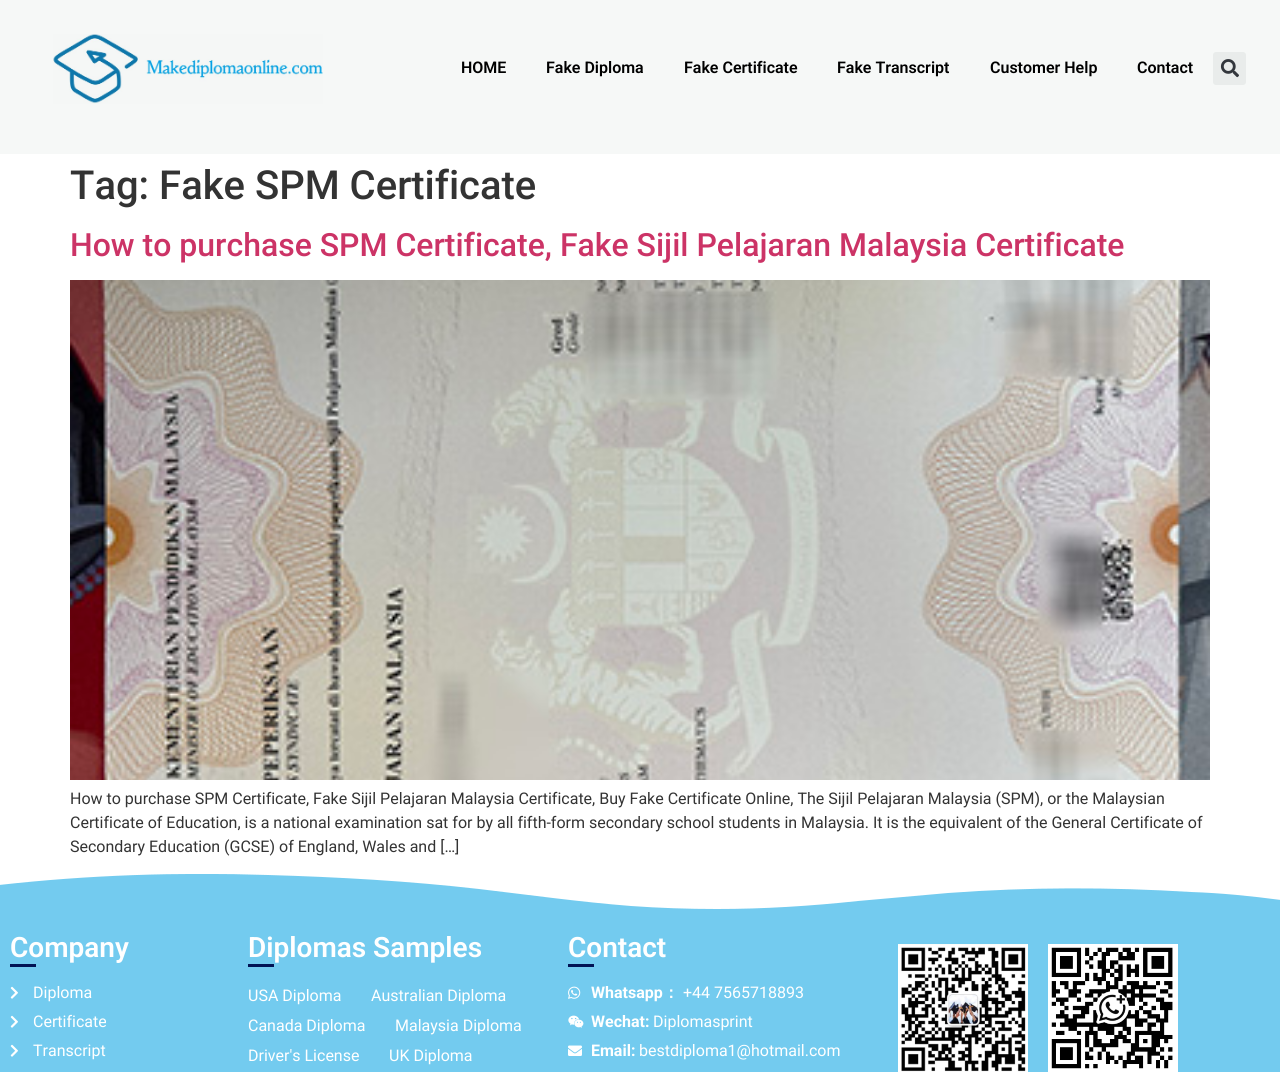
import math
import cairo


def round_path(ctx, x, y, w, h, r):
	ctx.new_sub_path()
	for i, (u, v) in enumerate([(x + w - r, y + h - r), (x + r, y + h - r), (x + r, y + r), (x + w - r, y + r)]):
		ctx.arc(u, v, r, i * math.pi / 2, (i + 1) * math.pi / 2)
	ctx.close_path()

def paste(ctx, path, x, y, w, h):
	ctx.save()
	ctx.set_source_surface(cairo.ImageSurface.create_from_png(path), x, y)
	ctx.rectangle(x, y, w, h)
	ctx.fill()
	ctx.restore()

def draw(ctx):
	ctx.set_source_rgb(1, 1, 1)
	ctx.paint()
	ctx.set_source_rgb(0.961, 0.969, 0.965)
	ctx.rectangle(0, 0, 1280, 154)
	ctx.fill()
	paste(ctx, 'media/1.png', 53, 34, 270, 70)
	ctx.select_font_face('Roboto SemiBold')
	ctx.set_font_size(16)
	ctx.set_source_rgb(0, 0, 0)
	for x, y, s in [
		(461, 73, 'HOME'),
		(546, 73, 'Fake Diploma'),
		(684, 73, 'Fake Certificate'),
		(837, 73, 'Fake Transcript'),
		(990, 73, 'Customer Help'),
		(1137, 73, 'Contact'),
	]:
		ctx.move_to(x, y)
		ctx.show_text(s)
	ctx.set_source_rgb(0.914, 0.922, 0.918)
	round_path(ctx, 1213, 52, 33, 33, 3)
	ctx.fill()
	paste(ctx, 'media/2.png', 1220, 59, 19, 19)
	ctx.select_font_face('Roboto Medium')
	ctx.set_font_size(40)
	ctx.set_source_rgb(0.2, 0.2, 0.2)
	ctx.move_to(70, 199)
	ctx.show_text('Tag: Fake SPM Certificate')
	ctx.set_font_size(32)
	ctx.set_source_rgb(0.8, 0.2, 0.4)
	ctx.move_to(70, 256)
	ctx.show_text('How to purchase SPM Certificate, Fake Sijil Pelajaran Malaysia Certificate')
	paste(ctx, 'media/3.png', 70, 280, 1140, 500)
	ctx.select_font_face('Roboto')
	ctx.set_font_size(16)
	ctx.set_source_rgb(0.2, 0.2, 0.2)
	for x, y, s in [
		(70, 804, 'How to purchase SPM Certificate, Fake Sijil Pelajaran Malaysia Certificate, Buy Fake Certificate Online, The Sijil Pelajaran Malaysia (SPM), or the Malaysian'),
		(70, 828, 'Certificate of Education, is a national examination sat for by all fifth-form secondary school students in Malaysia. It is the equivalent of the General Certificate of'),
		(70, 852, 'Secondary Education (GCSE) of England, Wales and […]'),
	]:
		ctx.move_to(x, y)
		ctx.show_text(s)
	ctx.set_source_rgb(0.451, 0.796, 0.937)
	ctx.rectangle(0, 874, 1280, 198)
	ctx.fill()
	ctx.save()
	ctx.rectangle(0, 873, 1280, 37)
	ctx.clip()
	ctx.set_source_rgb(1, 1, 1)
	ctx.new_path()
	ctx.move_to(268, 875)
	ctx.curve_to(338, 877, 409, 881, 479, 889)
	ctx.curve_to(530, 895, 580, 902, 631, 906)
	ctx.curve_to(659, 908, 688, 909, 717, 909)
	ctx.curve_to(764, 909, 811, 906, 858, 901)
	ctx.line_to(948, 893)
	ctx.curve_to(1029, 887, 1110, 887, 1191, 892)
	ctx.curve_to(1221, 893, 1251, 896, 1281, 900)
	ctx.line_to(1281, 872)
	ctx.line_to(-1, 872)
	ctx.line_to(-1, 885)
	ctx.curve_to(88, 875, 178, 872, 268, 875)
	ctx.close_path()
	ctx.fill()
	ctx.restore()
	ctx.select_font_face('Roboto SemiBold')
	ctx.set_font_size(28)
	ctx.set_source_rgb(1, 1, 1)
	ctx.move_to(10, 957)
	ctx.show_text('Company')
	ctx.set_source_rgb(0.004, 0.082, 0.333)
	ctx.rectangle(10, 964, 26, 3)
	ctx.fill()
	paste(ctx, 'media/4.png', 10, 986, 8, 13)
	ctx.select_font_face('Roboto')
	ctx.set_font_size(16)
	ctx.set_source_rgb(1, 1, 1)
	ctx.move_to(33, 998)
	ctx.show_text('Diploma')
	paste(ctx, 'media/4.png', 10, 1015, 8, 13)
	ctx.move_to(33, 1027)
	ctx.show_text('Certificate')
	paste(ctx, 'media/4.png', 10, 1044, 8, 13)
	ctx.move_to(33, 1056)
	ctx.show_text('Transcript')
	ctx.select_font_face('Roboto SemiBold')
	ctx.set_font_size(28)
	ctx.move_to(248, 957)
	ctx.show_text('Diplomas Samples')
	ctx.set_source_rgb(0.004, 0.082, 0.333)
	ctx.rectangle(248, 964, 26, 3)
	ctx.fill()
	ctx.select_font_face('Roboto')
	ctx.set_font_size(16)
	ctx.set_source_rgb(1, 1, 1)
	for x, y, s in [
		(248, 1001, 'USA Diploma'),
		(371, 1001, 'Australian Diploma'),
		(248, 1031, 'Canada Diploma'),
		(395, 1031, 'Malaysia Diploma'),
		(248, 1061, 'Driver\'s License'),
		(389, 1061, 'UK Diploma'),
	]:
		ctx.move_to(x, y)
		ctx.show_text(s)
	ctx.select_font_face('Roboto SemiBold')
	ctx.set_font_size(28)
	ctx.move_to(568, 957)
	ctx.show_text('Contact')
	ctx.set_source_rgb(0.004, 0.082, 0.333)
	ctx.rectangle(568, 964, 26, 3)
	ctx.fill()
	paste(ctx, 'media/5.png', 568, 986, 13, 13)
	ctx.select_font_face('Roboto', cairo.FONT_SLANT_NORMAL, cairo.FONT_WEIGHT_BOLD)
	ctx.set_font_size(16)
	ctx.set_source_rgb(1, 1, 1)
	ctx.move_to(591, 998)
	ctx.show_text('Whatsapp')
	ctx.select_font_face('WenQuanYi Zen Hei', cairo.FONT_SLANT_NORMAL, cairo.FONT_WEIGHT_BOLD)
	ctx.move_to(663, 998)
	ctx.show_text('：')
	ctx.select_font_face('Roboto')
	ctx.move_to(683, 998)
	ctx.show_text('+44 7565718893')
	paste(ctx, 'media/6.png', 568, 1015, 16, 13)
	ctx.select_font_face('Roboto', cairo.FONT_SLANT_NORMAL, cairo.FONT_WEIGHT_BOLD)
	ctx.move_to(591, 1027)
	ctx.show_text('Wechat:')
	ctx.select_font_face('Roboto')
	ctx.move_to(653, 1027)
	ctx.show_text('Diplomasprint')
	paste(ctx, 'media/7.png', 568, 1045, 14, 11)
	ctx.select_font_face('Roboto', cairo.FONT_SLANT_NORMAL, cairo.FONT_WEIGHT_BOLD)
	ctx.move_to(591, 1056)
	ctx.show_text('Email:')
	ctx.select_font_face('Roboto')
	ctx.move_to(639, 1056)
	ctx.show_text('bestdiploma1@hotmail.com')
	paste(ctx, 'media/8.png', 898, 944, 130, 128)
	paste(ctx, 'media/9.png', 1048, 944, 130, 128)


surface = cairo.ImageSurface(cairo.FORMAT_RGB24, 1280, 1072)
ctx = cairo.Context(surface)
options = cairo.FontOptions()
options.set_hint_metrics(cairo.HINT_METRICS_OFF)
options.set_hint_style(cairo.HINT_STYLE_NONE)
ctx.set_font_options(options)
ctx.set_miter_limit(4)
draw(ctx)
surface.write_to_png('image.png')
